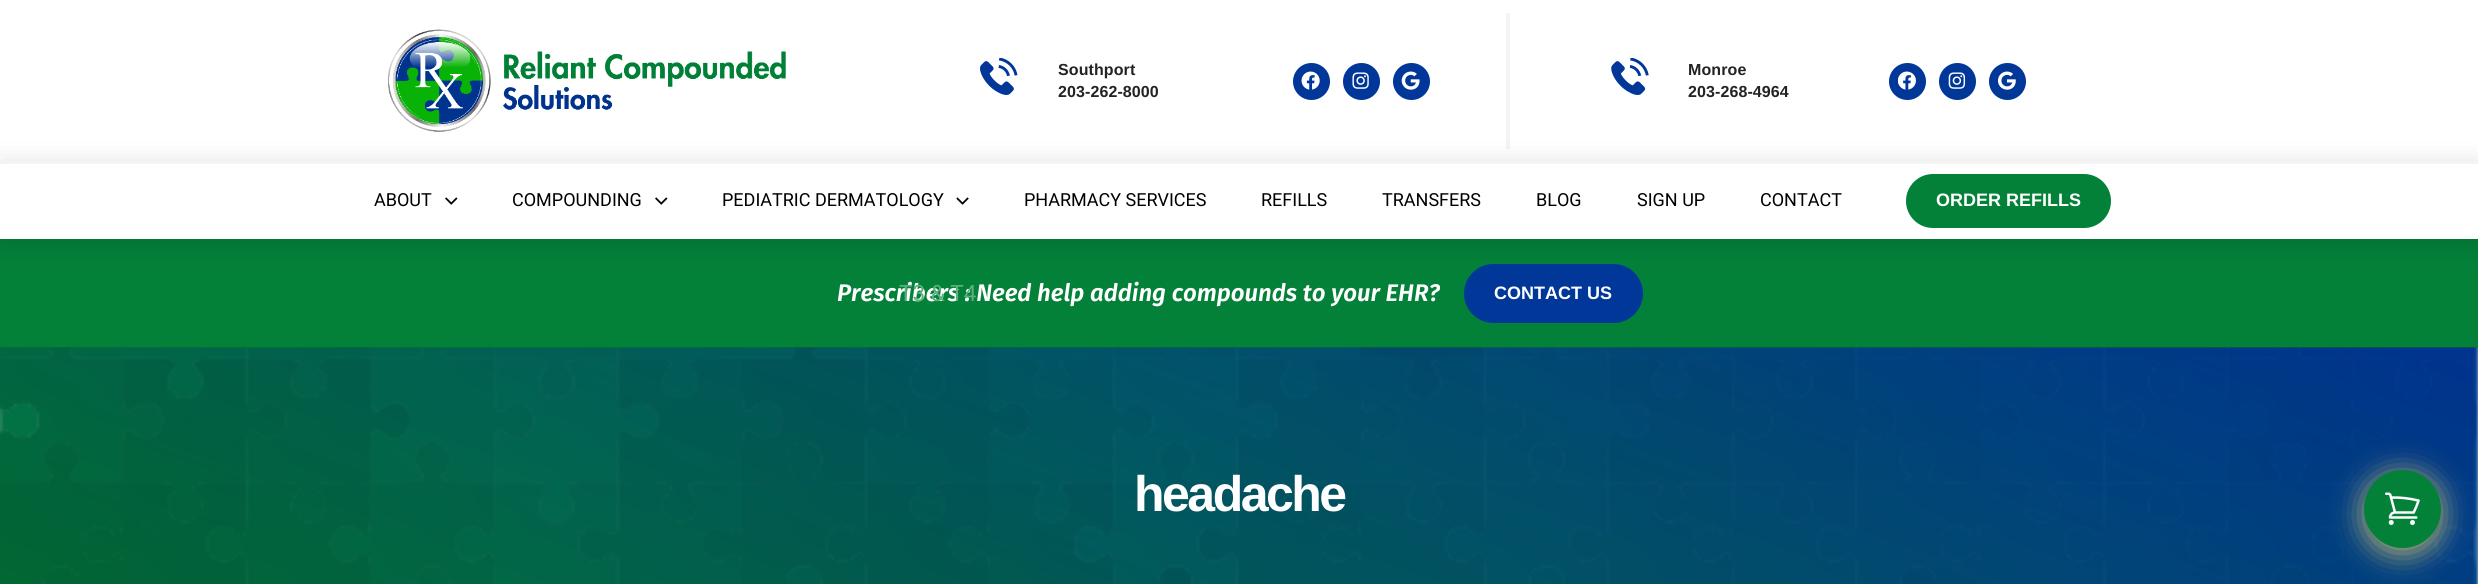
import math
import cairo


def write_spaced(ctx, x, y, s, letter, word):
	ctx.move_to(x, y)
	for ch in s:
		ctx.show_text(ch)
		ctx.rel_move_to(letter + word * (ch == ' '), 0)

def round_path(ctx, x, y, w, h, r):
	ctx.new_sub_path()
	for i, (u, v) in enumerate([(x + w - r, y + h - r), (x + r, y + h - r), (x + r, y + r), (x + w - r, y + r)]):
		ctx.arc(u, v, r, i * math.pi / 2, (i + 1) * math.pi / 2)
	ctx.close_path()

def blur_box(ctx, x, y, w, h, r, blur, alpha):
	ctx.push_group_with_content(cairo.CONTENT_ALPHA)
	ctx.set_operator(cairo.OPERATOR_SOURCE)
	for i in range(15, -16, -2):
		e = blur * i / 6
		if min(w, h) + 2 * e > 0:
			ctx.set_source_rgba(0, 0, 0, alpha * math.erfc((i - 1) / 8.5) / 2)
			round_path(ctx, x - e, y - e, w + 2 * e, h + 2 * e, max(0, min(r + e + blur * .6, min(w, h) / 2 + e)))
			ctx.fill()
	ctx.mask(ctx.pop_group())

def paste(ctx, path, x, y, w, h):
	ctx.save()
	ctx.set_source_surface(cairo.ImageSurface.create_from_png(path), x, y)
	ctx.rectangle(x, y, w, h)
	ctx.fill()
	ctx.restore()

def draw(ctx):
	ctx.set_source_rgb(1, 1, 1)
	ctx.paint()
	paste(ctx, 'media/1.png', 387, 29, 399, 103)
	ctx.set_source_rgb(0.957, 0.957, 0.957)
	ctx.rectangle(1506, 13, 4, 136)
	ctx.fill()
	paste(ctx, 'media/2.png', 980, 58, 38, 37)
	ctx.select_font_face('Liberation Sans', cairo.FONT_SLANT_NORMAL, cairo.FONT_WEIGHT_BOLD)
	ctx.set_font_size(16)
	ctx.set_source_rgb(0.145, 0.137, 0.133)
	write_spaced(ctx, 1058, 75, 'Southport', 0.1, 0)
	write_spaced(ctx, 1058, 97, '203-262-8000', 0.1, 0)
	ctx.set_source_rgb(0, 0.216, 0.6)
	ctx.new_path()
	ctx.arc(1311.5, 81.5, 18.5, 0, 2 * math.pi)
	ctx.fill()
	paste(ctx, 'media/3.png', 1301, 71, 19, 19)
	ctx.arc(1361.5, 81.5, 18.5, 0, 2 * math.pi)
	ctx.fill()
	paste(ctx, 'media/4.png', 1352, 72, 17, 17)
	ctx.arc(1411.5, 81.5, 18.5, 0, 2 * math.pi)
	ctx.fill()
	paste(ctx, 'media/5.png', 1401, 71, 19, 19)
	paste(ctx, 'media/6.png', 1611, 58, 38, 37)
	ctx.set_source_rgb(0.145, 0.137, 0.133)
	write_spaced(ctx, 1688, 75, 'Monroe', 0.1, 0)
	write_spaced(ctx, 1688, 97, '203-268-4964', 0.1, 0)
	ctx.set_source_rgb(0, 0.216, 0.6)
	ctx.new_path()
	ctx.arc(1907.5, 81.5, 18.5, 0, 2 * math.pi)
	ctx.fill()
	paste(ctx, 'media/7.png', 1898, 71, 18, 19)
	ctx.arc(1957.5, 81.5, 18.5, 0, 2 * math.pi)
	ctx.fill()
	paste(ctx, 'media/8.png', 1948, 72, 18, 17)
	ctx.arc(2007.5, 81.5, 18.5, 0, 2 * math.pi)
	ctx.fill()
	paste(ctx, 'media/9.png', 1998, 71, 18, 19)
	ctx.set_source_rgb(0.012, 0.506, 0.224)
	ctx.rectangle(0, 239, 2478, 109)
	ctx.fill()
	ctx.set_source_rgb(0, 0.216, 0.6)
	round_path(ctx, 1464, 264, 179, 59, 29.5)
	ctx.fill()
	ctx.set_source_rgb(0, 0, 0)
	blur_box(ctx, 0, 165, 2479, 78, 0, 13, 0.15)
	ctx.set_source_rgb(1, 1, 1)
	ctx.rectangle(0, 164, 2478, 75)
	ctx.fill()
	ctx.set_source_rgb(0.957, 0.957, 0.957)
	ctx.rectangle(0, 161, 2478, 3)
	ctx.fill()
	ctx.select_font_face('Roboto')
	ctx.set_font_size(18)
	ctx.set_source_rgb(0, 0, 0)
	ctx.move_to(374, 206)
	ctx.show_text('ABOUT')
	paste(ctx, 'media/10.png', 445, 197, 13, 8)
	ctx.move_to(512, 206)
	ctx.show_text('COMPOUNDING')
	paste(ctx, 'media/10.png', 655, 197, 13, 8)
	ctx.select_font_face('Fira Sans SemiBold', cairo.FONT_SLANT_ITALIC)
	ctx.set_font_size(24)
	ctx.set_source_rgb(1, 1, 1)
	ctx.move_to(837, 301)
	ctx.show_text('Prescribers : Need help adding compounds to your EHR?')
	ctx.select_font_face('Roboto')
	ctx.set_font_size(22.5)
	ctx.set_source_rgb(0.369, 0.682, 0.502)
	ctx.move_to(899, 301)
	ctx.show_text('T3 & T4')
	ctx.set_font_size(18)
	ctx.set_source_rgb(0, 0, 0)
	ctx.move_to(722, 206)
	ctx.show_text('PEDIATRIC DERMATOLOGY')
	paste(ctx, 'media/11.png', 956, 197, 13, 8)
	for x, y, s in [
		(1024, 206, 'PHARMACY SERVICES'),
		(1261, 206, 'REFILLS'),
		(1382, 206, 'TRANSFERS'),
		(1536, 206, 'BLOG'),
		(1637, 206, 'SIGN UP'),
		(1760, 206, 'CONTACT'),
	]:
		ctx.move_to(x, y)
		ctx.show_text(s)
	ctx.set_source_rgb(0.012, 0.506, 0.224)
	round_path(ctx, 1906, 174, 205, 54, 27)
	ctx.fill()
	ctx.select_font_face('Liberation Sans', cairo.FONT_SLANT_NORMAL, cairo.FONT_WEIGHT_BOLD)
	ctx.set_source_rgb(1, 1, 1)
	ctx.move_to(1936, 206)
	ctx.show_text('ORDER REFILLS')
	ctx.move_to(1494, 299)
	ctx.show_text('CONTACT US')
	paste(ctx, 'media/12.png', 0, 347, 2477, 237)
	gradient = cairo.LinearGradient(1431, -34, 1047, 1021)
	gradient.add_color_stop_rgba(0, 0, 0.216, 0.6, 0.73)
	gradient.add_color_stop_rgba(1, 0.012, 0.506, 0.224, 0.47)
	ctx.set_source(gradient)
	ctx.rectangle(0, 348, 2478, 236)
	ctx.fill()
	ctx.set_font_size(50)
	ctx.set_source_rgb(1, 1, 1)
	write_spaced(ctx, 1134, 511, 'headache', -2.5, 0)
	ctx.set_source_rgb(1, 0.886, 0.424)
	blur_box(ctx, 2364, 475, 77, 78, 38.5, 15, 0.72)
	ctx.set_source_rgb(0.012, 0.506, 0.224)
	round_path(ctx, 2364, 470, 77, 78, 38.5)
	ctx.fill()
	paste(ctx, 'media/13.png', 2385, 492, 35, 33)


surface = cairo.ImageSurface(cairo.FORMAT_RGB24, 2478, 584)
ctx = cairo.Context(surface)
options = cairo.FontOptions()
options.set_hint_metrics(cairo.HINT_METRICS_OFF)
options.set_hint_style(cairo.HINT_STYLE_NONE)
ctx.set_font_options(options)
ctx.set_miter_limit(4)
draw(ctx)
surface.write_to_png('image.png')
